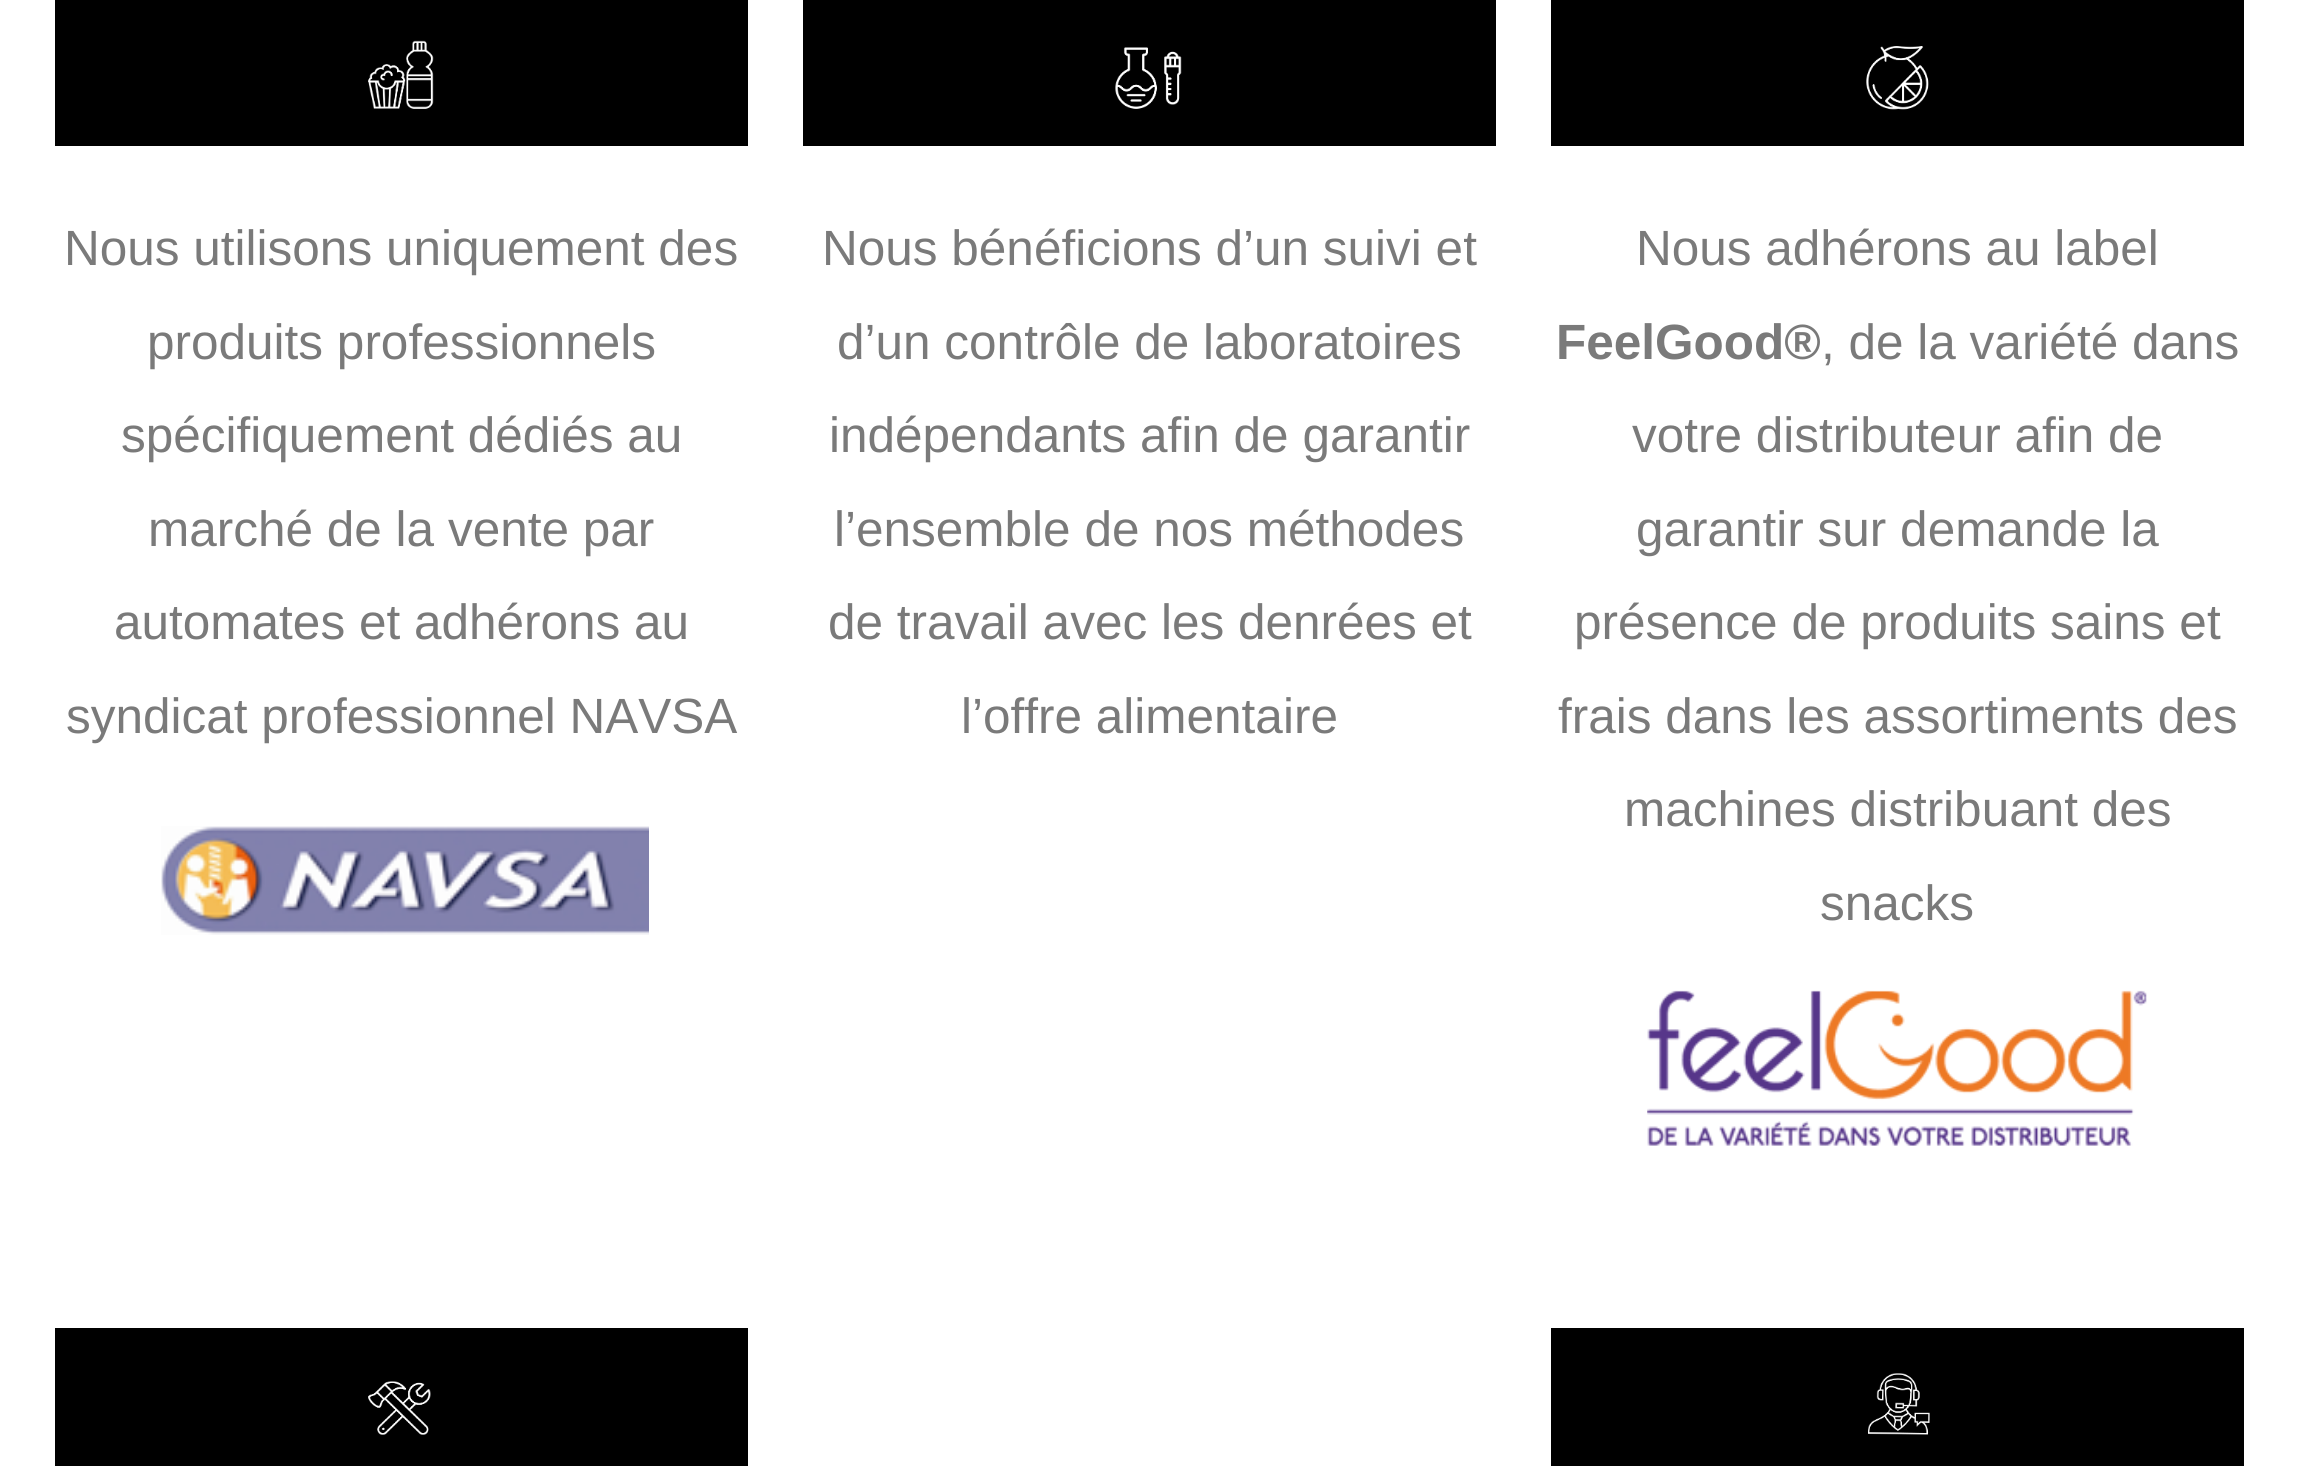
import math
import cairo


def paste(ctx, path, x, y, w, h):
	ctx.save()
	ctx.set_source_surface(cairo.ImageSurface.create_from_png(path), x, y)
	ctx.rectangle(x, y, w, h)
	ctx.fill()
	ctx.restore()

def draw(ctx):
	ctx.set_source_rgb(1, 1, 1)
	ctx.paint()
	ctx.set_source_rgb(0, 0, 0)
	ctx.rectangle(55, 0, 693, 146)
	ctx.fill()
	paste(ctx, 'media/1.png', 368, 40, 66, 69)
	ctx.select_font_face('Liberation Sans')
	ctx.set_font_size(49.5)
	ctx.set_source_rgb(0.478, 0.478, 0.478)
	for x, y, s in [
		(64, 265, 'Nous utilisons uniquement des'),
		(147, 359, 'produits professionnels'),
		(121, 452, 'spécifiquement dédiés au'),
		(148, 546, 'marché de la vente par'),
		(114, 639, 'automates et adhérons au'),
		(66, 733, 'syndicat professionnel NAVSA'),
	]:
		ctx.move_to(x, y)
		ctx.show_text(s)
	paste(ctx, 'media/2.png', 161, 826, 488, 109)
	ctx.set_source_rgb(0, 0, 0)
	ctx.rectangle(803, 0, 693, 146)
	ctx.fill()
	paste(ctx, 'media/3.png', 1115, 47, 67, 62)
	ctx.set_source_rgb(0.478, 0.478, 0.478)
	for x, y, s in [
		(822, 265, 'Nous bénéficions d’un suivi et'),
		(837, 359, 'd’un contrôle de laboratoires'),
		(829, 452, 'indépendants afin de garantir'),
		(834, 546, 'l’ensemble de nos méthodes'),
		(828, 639, 'de travail avec les denrées et'),
		(961, 733, 'l’offre alimentaire'),
	]:
		ctx.move_to(x, y)
		ctx.show_text(s)
	ctx.set_source_rgb(0, 0, 0)
	ctx.rectangle(1551, 0, 693, 146)
	ctx.fill()
	paste(ctx, 'media/4.png', 1866, 46, 63, 64)
	ctx.set_source_rgb(0.478, 0.478, 0.478)
	ctx.move_to(1636, 265)
	ctx.show_text('Nous adhérons au label')
	ctx.select_font_face('Liberation Sans', cairo.FONT_SLANT_NORMAL, cairo.FONT_WEIGHT_BOLD)
	ctx.move_to(1556, 359)
	ctx.show_text('FeelGood®')
	ctx.select_font_face('Liberation Sans')
	for x, y, s in [
		(1821, 359, ', de la variété dans'),
		(1632, 452, 'votre distributeur afin de'),
		(1636, 546, 'garantir sur demande la'),
		(1574, 639, 'présence de produits sains et'),
		(1558, 733, 'frais dans les assortiments des'),
		(1624, 826, 'machines distribuant des'),
		(1820, 920, 'snacks'),
	]:
		ctx.move_to(x, y)
		ctx.show_text(s)
	paste(ctx, 'media/5.png', 1647, 990, 500, 156)
	ctx.set_source_rgb(0, 0, 0)
	ctx.rectangle(55, 1328, 693, 138)
	ctx.fill()
	paste(ctx, 'media/6.png', 368, 1381, 63, 54)
	ctx.rectangle(1551, 1328, 693, 138)
	ctx.fill()
	paste(ctx, 'media/7.png', 1868, 1373, 62, 62)


surface = cairo.ImageSurface(cairo.FORMAT_RGB24, 2298, 1466)
ctx = cairo.Context(surface)
options = cairo.FontOptions()
options.set_hint_metrics(cairo.HINT_METRICS_OFF)
options.set_hint_style(cairo.HINT_STYLE_NONE)
ctx.set_font_options(options)
ctx.set_miter_limit(4)
draw(ctx)
surface.write_to_png('image.png')
